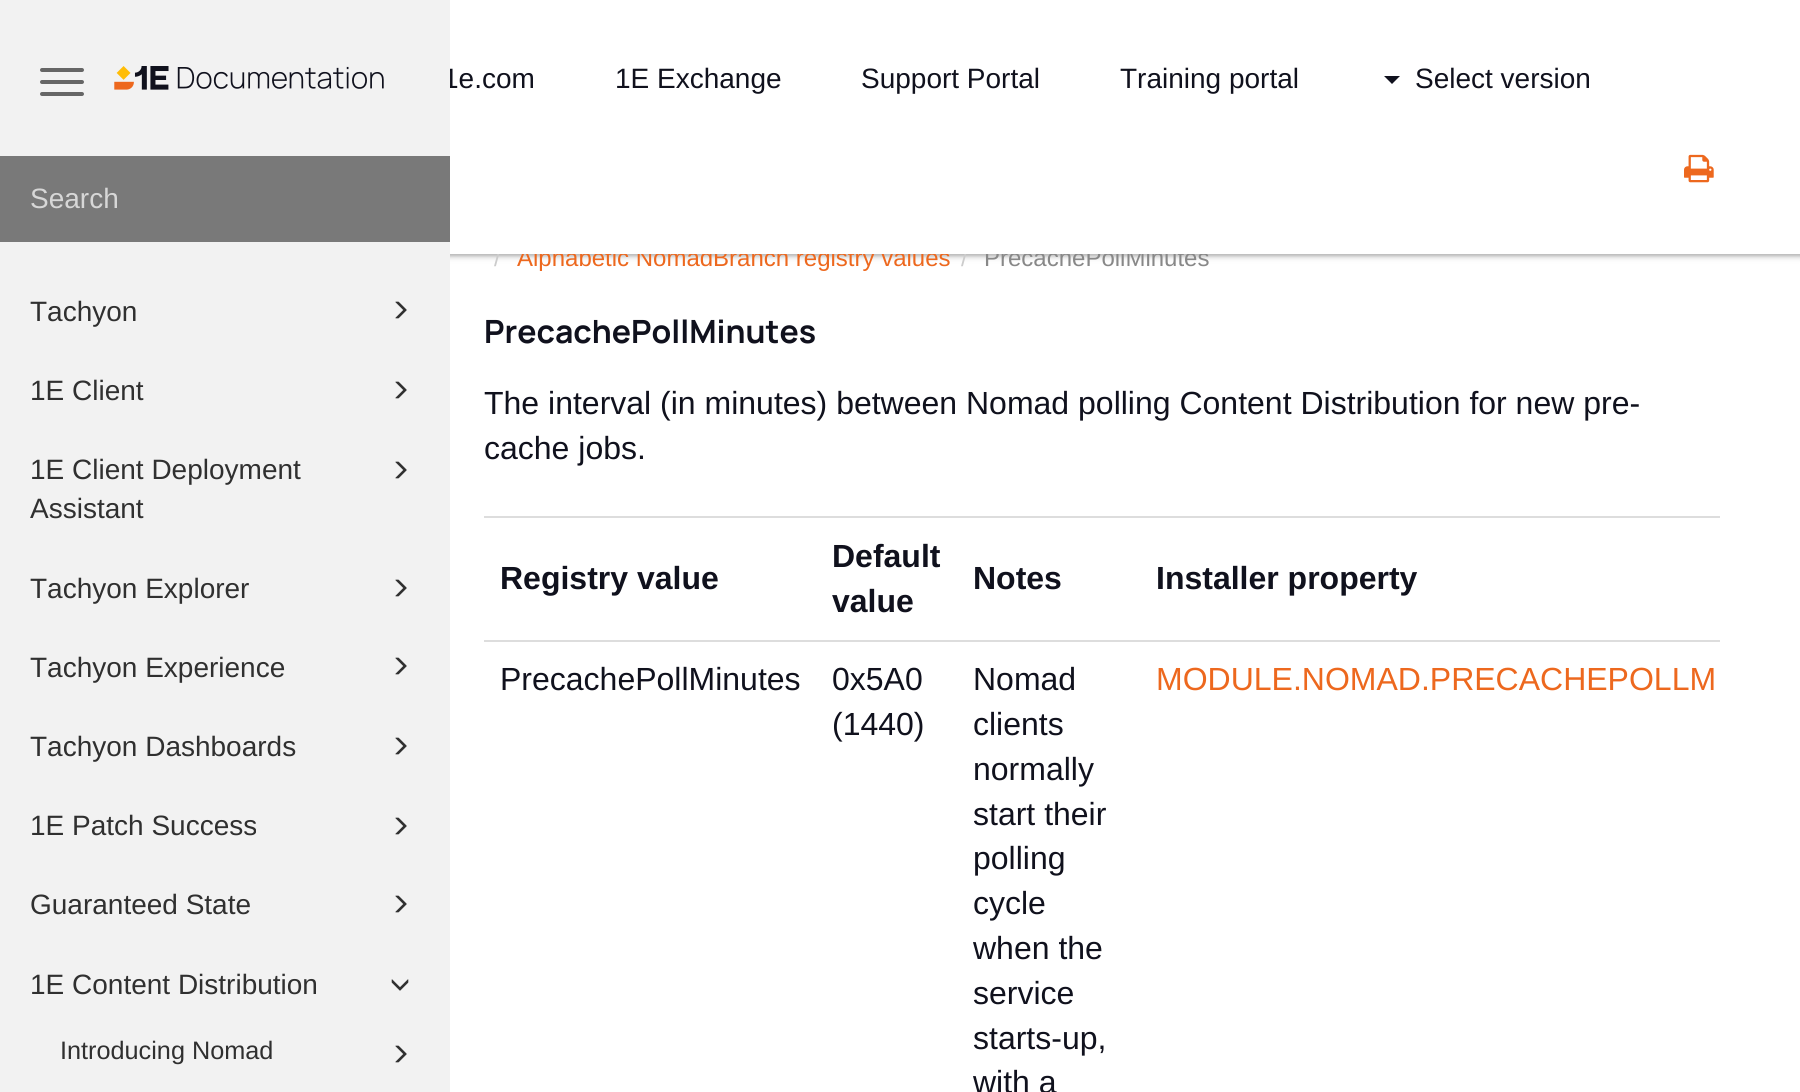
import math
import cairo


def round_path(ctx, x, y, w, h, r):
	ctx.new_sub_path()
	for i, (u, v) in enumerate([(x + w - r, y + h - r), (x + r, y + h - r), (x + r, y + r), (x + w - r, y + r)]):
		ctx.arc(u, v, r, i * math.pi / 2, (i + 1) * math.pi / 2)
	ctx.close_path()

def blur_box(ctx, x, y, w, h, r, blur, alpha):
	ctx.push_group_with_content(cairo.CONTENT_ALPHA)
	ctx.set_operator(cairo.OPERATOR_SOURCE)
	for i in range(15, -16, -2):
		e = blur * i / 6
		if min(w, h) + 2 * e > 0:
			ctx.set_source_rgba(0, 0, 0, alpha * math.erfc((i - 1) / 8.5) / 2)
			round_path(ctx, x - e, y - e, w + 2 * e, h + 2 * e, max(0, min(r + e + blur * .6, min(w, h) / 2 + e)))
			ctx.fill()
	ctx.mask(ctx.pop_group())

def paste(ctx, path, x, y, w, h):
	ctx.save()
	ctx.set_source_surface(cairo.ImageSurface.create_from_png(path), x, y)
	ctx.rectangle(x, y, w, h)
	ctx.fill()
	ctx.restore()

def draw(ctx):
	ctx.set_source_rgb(1, 1, 1)
	ctx.paint()
	ctx.set_source_rgb(0, 0, 0)
	blur_box(ctx, -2, -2, 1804, 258, 0, 5, 0.08)
	blur_box(ctx, -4, -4, 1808, 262, 0, 2, 0.1)
	blur_box(ctx, -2, -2, 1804, 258, 0, 1, 0.14)
	ctx.select_font_face('Liberation Sans')
	ctx.set_font_size(24)
	ctx.set_source_rgb(0.8, 0.8, 0.8)
	ctx.move_to(494, 266)
	ctx.show_text('/')
	ctx.set_source_rgb(0.929, 0.408, 0.118)
	ctx.move_to(517, 266)
	ctx.show_text('Alphabetic NomadBranch registry values')
	ctx.set_source_rgb(0.8, 0.8, 0.8)
	ctx.move_to(961, 266)
	ctx.show_text('/')
	ctx.set_source_rgb(0.533, 0.533, 0.533)
	ctx.move_to(984, 266)
	ctx.show_text('PrecachePollMinutes')
	ctx.set_source_rgb(1, 1, 1)
	ctx.rectangle(450, 0, 1350, 254)
	ctx.fill()
	ctx.set_font_size(28)
	ctx.set_source_rgb(0.063, 0.067, 0.114)
	ctx.move_to(443, 88)
	ctx.show_text('1e.com')
	ctx.set_source_rgb(0.949, 0.949, 0.949)
	ctx.rectangle(0, 0, 450, 1092)
	ctx.fill()
	ctx.set_source_rgb(0.4, 0.4, 0.4)
	round_path(ctx, 40, 68, 44, 4, 2)
	ctx.fill()
	round_path(ctx, 40, 80, 44, 4, 2)
	ctx.fill()
	round_path(ctx, 40, 92, 44, 4, 2)
	ctx.fill()
	paste(ctx, 'media/1.png', 114, 66, 270, 24)
	ctx.set_source_rgb(0.475, 0.475, 0.475)
	ctx.rectangle(0, 156, 450, 86)
	ctx.fill()
	ctx.set_source_rgb(0.843, 0.843, 0.843)
	ctx.move_to(30, 208)
	ctx.show_text('Search')
	ctx.set_source_rgb(0.188, 0.188, 0.188)
	ctx.move_to(30, 321)
	ctx.show_text('Tachyon')
	paste(ctx, 'media/2.png', 395, 301, 12, 18)
	ctx.move_to(30, 400)
	ctx.show_text('1E Client')
	paste(ctx, 'media/2.png', 395, 381, 12, 18)
	ctx.move_to(30, 479)
	ctx.show_text('1E Client Deployment')
	paste(ctx, 'media/2.png', 395, 461, 12, 18)
	ctx.move_to(30, 518)
	ctx.show_text('Assistant')
	ctx.move_to(30, 598)
	ctx.show_text('Tachyon Explorer')
	paste(ctx, 'media/2.png', 395, 579, 12, 18)
	ctx.move_to(30, 677)
	ctx.show_text('Tachyon Experience')
	paste(ctx, 'media/2.png', 395, 657, 12, 18)
	ctx.move_to(30, 756)
	ctx.show_text('Tachyon Dashboards')
	paste(ctx, 'media/2.png', 395, 737, 12, 18)
	ctx.move_to(30, 835)
	ctx.show_text('1E Patch Success')
	paste(ctx, 'media/2.png', 395, 817, 12, 18)
	ctx.move_to(30, 914)
	ctx.show_text('Guaranteed State')
	paste(ctx, 'media/2.png', 395, 895, 12, 18)
	ctx.move_to(30, 994)
	ctx.show_text('1E Content Distribution')
	paste(ctx, 'media/3.png', 391, 979, 18, 12)
	ctx.set_font_size(25.25)
	ctx.move_to(60, 1059)
	ctx.show_text('Introducing Nomad')
	paste(ctx, 'media/2.png', 395, 1045, 12, 18)
	ctx.set_font_size(28)
	ctx.set_source_rgb(0.063, 0.067, 0.114)
	for x, y, s in [
		(615, 88, '1E Exchange'),
		(861, 88, 'Support Portal'),
		(1120, 88, 'Training portal'),
	]:
		ctx.move_to(x, y)
		ctx.show_text(s)
	ctx.new_path()
	ctx.move_to(1384, 76)
	ctx.line_to(1400, 76)
	ctx.line_to(1392, 84)
	ctx.close_path()
	ctx.fill()
	ctx.move_to(1415, 88)
	ctx.show_text('Select version')
	paste(ctx, 'media/4.png', 1684, 154, 30, 29)
	ctx.select_font_face('Manrope', cairo.FONT_SLANT_NORMAL, cairo.FONT_WEIGHT_BOLD)
	ctx.set_font_size(32)
	ctx.move_to(484, 343)
	ctx.show_text('PrecachePollMinutes')
	ctx.select_font_face('Liberation Sans')
	ctx.move_to(484, 414)
	ctx.show_text('The interval (in minutes) between Nomad polling Content Distribution for new pre-')
	ctx.move_to(484, 459)
	ctx.show_text('cache jobs.')
	ctx.select_font_face('Liberation Sans', cairo.FONT_SLANT_NORMAL, cairo.FONT_WEIGHT_BOLD)
	for x, y, s in [
		(500, 589, 'Registry value'),
		(832, 567, 'Default'),
		(832, 612, 'value'),
		(973, 589, 'Notes'),
	]:
		ctx.move_to(x, y)
		ctx.show_text(s)
	ctx.set_source_rgb(0.867, 0.867, 0.867)
	ctx.rectangle(484, 516, 1236, 2)
	ctx.fill()
	ctx.set_source_rgb(0.063, 0.067, 0.114)
	ctx.move_to(1156, 589)
	ctx.show_text('Installer property')
	ctx.select_font_face('Liberation Sans')
	for x, y, s in [
		(500, 690, 'PrecachePollMinutes'),
		(832, 690, '0x5A0'),
		(832, 735, '(1440)'),
		(973, 690, 'Nomad'),
		(973, 735, 'clients'),
		(973, 780, 'normally'),
		(973, 825, 'start their'),
		(973, 869, 'polling'),
		(973, 914, 'cycle'),
		(973, 959, 'when the'),
		(973, 1004, 'service'),
		(973, 1049, 'starts-up,'),
		(973, 1093, 'with a'),
	]:
		ctx.move_to(x, y)
		ctx.show_text(s)
	ctx.set_source_rgb(0.867, 0.867, 0.867)
	ctx.rectangle(484, 640, 1236, 2)
	ctx.fill()
	ctx.set_source_rgb(0.929, 0.408, 0.118)
	ctx.move_to(1156, 690)
	ctx.show_text('MODULE.NOMAD.PRECACHEPOLLM')


surface = cairo.ImageSurface(cairo.FORMAT_RGB24, 1800, 1092)
ctx = cairo.Context(surface)
options = cairo.FontOptions()
options.set_hint_metrics(cairo.HINT_METRICS_OFF)
options.set_hint_style(cairo.HINT_STYLE_NONE)
ctx.set_font_options(options)
ctx.set_miter_limit(4)
draw(ctx)
surface.write_to_png('image.png')
